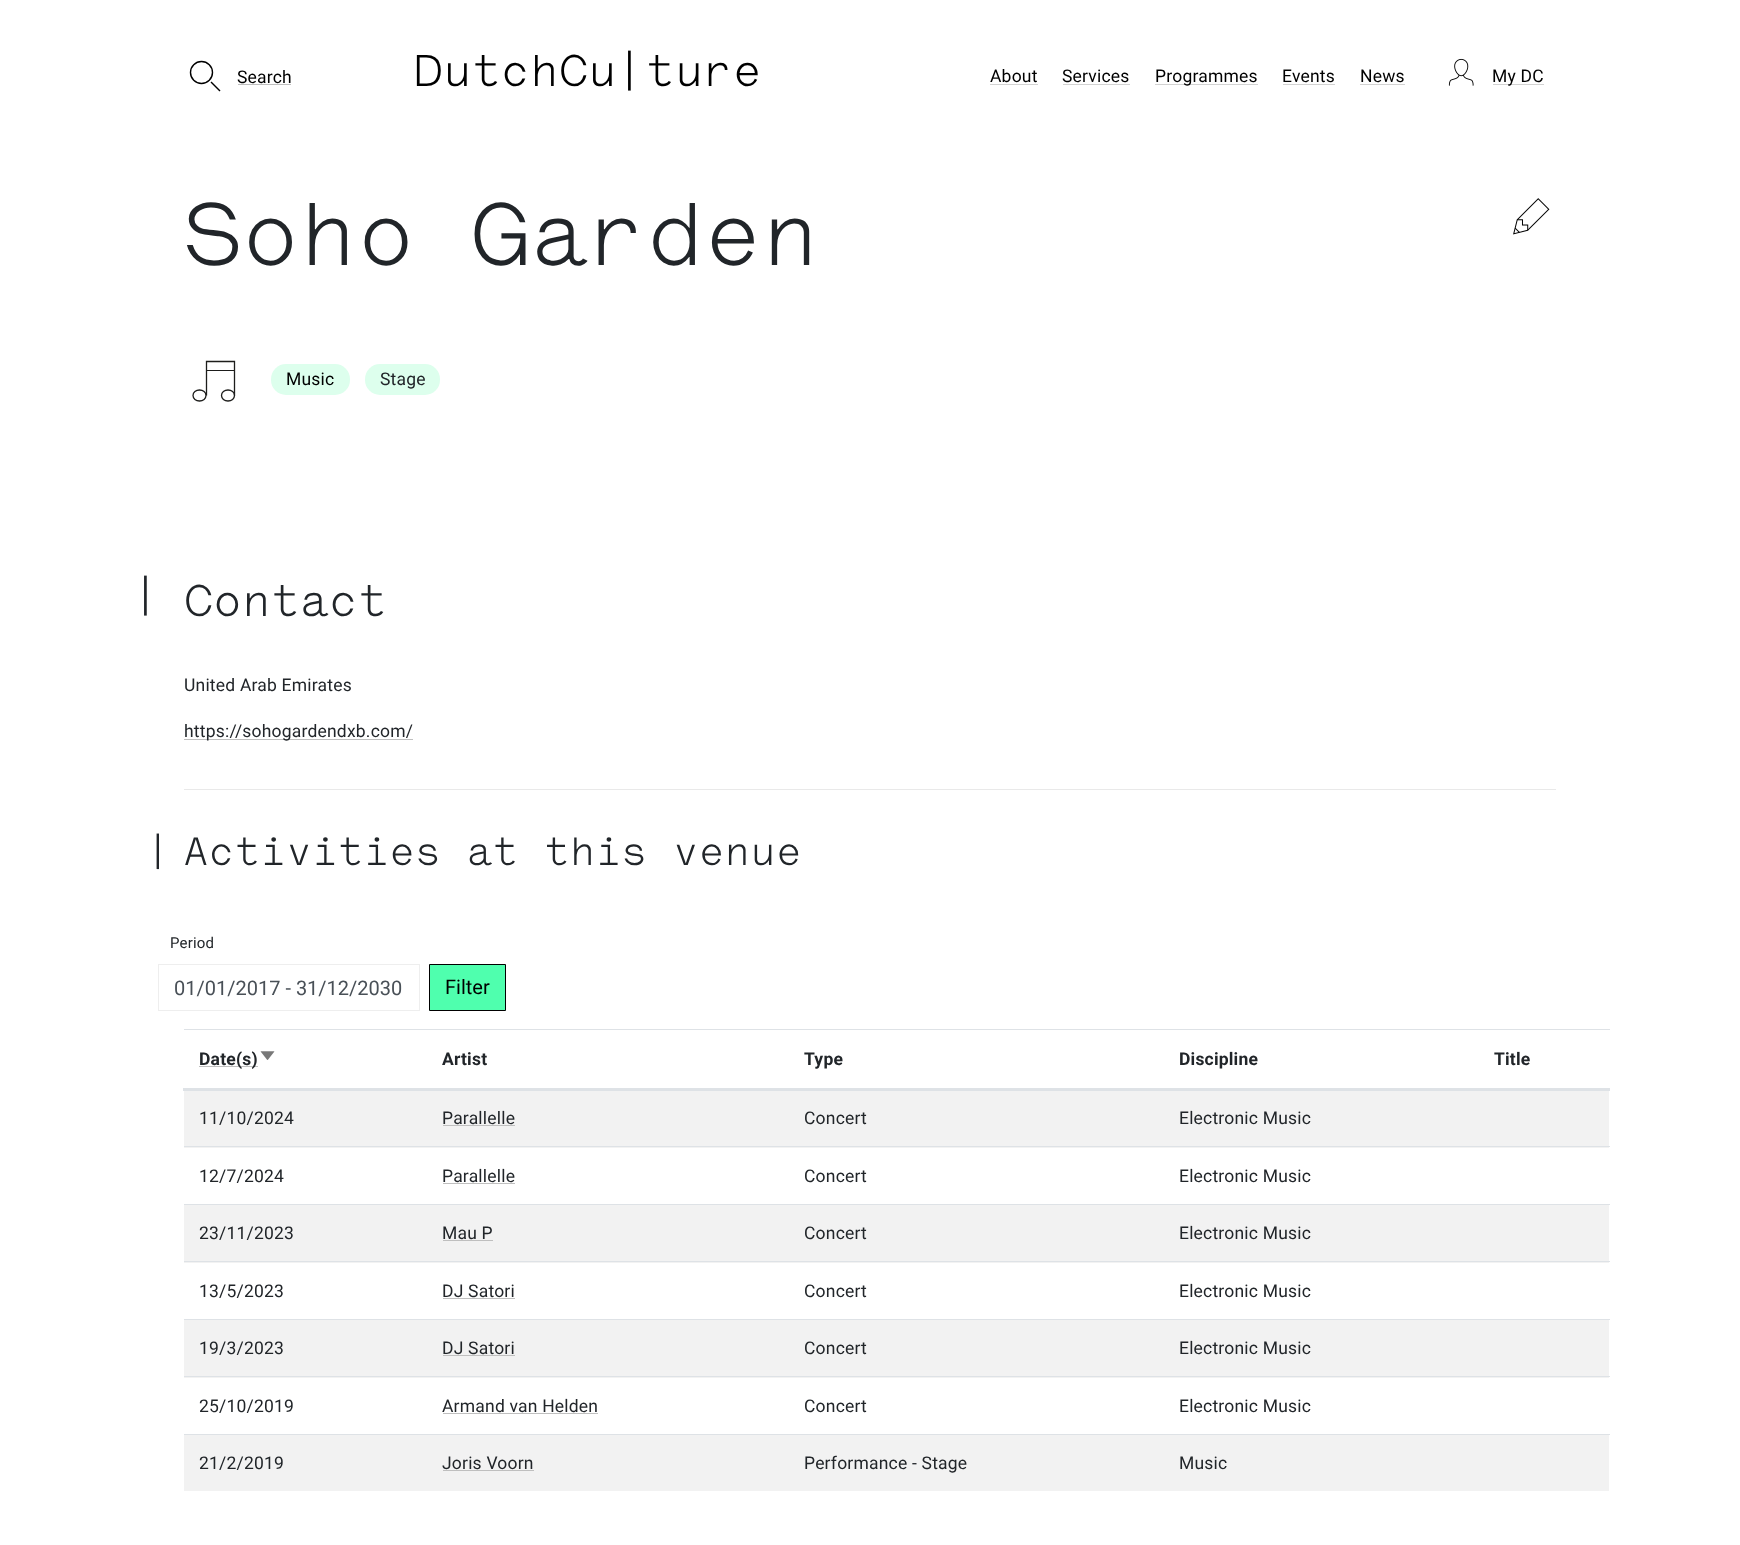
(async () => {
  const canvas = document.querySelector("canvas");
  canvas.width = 1740;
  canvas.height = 1545;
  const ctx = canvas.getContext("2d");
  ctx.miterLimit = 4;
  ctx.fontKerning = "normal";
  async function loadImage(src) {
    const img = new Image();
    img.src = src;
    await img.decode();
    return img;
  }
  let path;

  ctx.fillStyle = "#ffffff";
  ctx.fillRect(0, 0, 1740, 1545);
  ctx.beginPath();
  ctx.arc(201.5, 72.5, 11, 0, Math.PI * 2);
  ctx.strokeStyle = "#000000";
  ctx.lineWidth = 1.4;
  ctx.stroke();
  path = new Path2D("M211 82L220 91");
  ctx.stroke(path);
  for (const [x, y, w, h, color] of [
    [238, 84, 53, 1, "#bfbfbf"],
    [990, 84, 48, 1, "#d2d2d2"],
    [1063, 84, 67, 1, "#d2d2d2"],
    [1155, 84, 103, 1, "#d2d2d2"],
    [1283, 84, 52, 1, "#d2d2d2"],
    [1360, 84, 45, 1, "#d2d2d2"],
  ]) {
    ctx.fillStyle = color;
    ctx.fillRect(x, y, w, h);
  }
  ctx.drawImage(await loadImage("img/1.png"), 1448, 58, 26, 28);
  ctx.fillRect(1493, 84, 51, 1);
  ctx.drawImage(await loadImage("img/2.png"), 1513, 198, 37, 37);
  ctx.beginPath();
  ctx.ellipse(199.5, 395.5, 6.5, 5.5, 0, 0, Math.PI * 2);
  ctx.strokeStyle = "#1d1d1b";
  ctx.lineWidth = 1.3;
  ctx.stroke();
  ctx.beginPath();
  ctx.ellipse(228, 395.5, 6.5, 5.5, 0, 0, Math.PI * 2);
  ctx.stroke();
  path = new Path2D("M206.5 395.5V361.5H234.5V395.5");
  ctx.stroke(path);
  ctx.fillStyle = "#1d1d1b";
  ctx.fillRect(207, 370, 28, 1);
  ctx.fillStyle = "#ddffed";
  ctx.beginPath();
  ctx.roundRect(271, 364, 79, 31, 15);
  ctx.fill();
  ctx.beginPath();
  ctx.roundRect(365, 364, 75, 31, 15);
  ctx.fill();
  ctx.fillStyle = "#bfbfbf";
  ctx.fillRect(184, 739, 229, 1);
  ctx.fillStyle = "#e9e9e9";
  ctx.fillRect(184, 789, 1372, 1);
  ctx.strokeStyle = "#eeeeee";
  ctx.lineWidth = 1;
  ctx.strokeRect(158.5, 964.5, 261, 46);
  ctx.fillStyle = "#4fffae";
  ctx.beginPath();
  ctx.rect(429.5, 964.5, 76, 46);
  ctx.fill();
  ctx.strokeStyle = "#000000";
  ctx.stroke();
  ctx.fillStyle = "#bfbfbf";
  ctx.fillRect(199, 1066, 59, 1);
  ctx.drawImage(await loadImage("img/3.png"), 260, 1051, 15, 9);
  for (const [x, y, w, h, color] of [
    [184, 1029, 1426, 1, "#dee2e6"],
    [183, 1088, 1427, 3, "#dee2e6"],
    [184, 1091, 1425, 57, "#f2f2f2"],
    [443, 1125, 72, 1, "#bfbfbf"],
    [184, 1146, 1426, 1, "#dee2e6"],
    [443, 1183, 72, 1, "#bfbfbf"],
    [184, 1205, 1425, 58, "#f2f2f2"],
    [184, 1204, 1426, 1, "#dee2e6"],
    [443, 1240, 50, 1, "#bfbfbf"],
    [184, 1261, 1426, 1, "#dee2e6"],
    [443, 1298, 72, 1, "#bfbfbf"],
    [184, 1320, 1425, 58, "#f2f2f2"],
    [184, 1319, 1426, 1, "#dee2e6"],
    [443, 1355, 72, 1, "#bfbfbf"],
    [184, 1376, 1426, 1, "#dee2e6"],
    [443, 1413, 155, 1, "#bfbfbf"],
    [184, 1435, 1425, 56, "#f2f2f2"],
    [184, 1434, 1426, 1, "#dee2e6"],
    [443, 1470, 91, 1, "#bfbfbf"],
  ]) {
    ctx.fillStyle = color;
    ctx.fillRect(x, y, w, h);
  }
  ctx.letterSpacing = "0.2px";
  ctx.font = "17.5px Roboto";
  ctx.fillStyle = "#000000";
  ctx.fillText("Search", 237, 83);
  ctx.font = "45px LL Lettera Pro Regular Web";
  ctx.fillText("DutchCu ture", 414, 86);
  ctx.fillText("|", 615, 86);
  ctx.font = "17.5px Roboto";
  for (const [text, x, y] of [
    ["About", 990, 82],
    ["Services", 1062, 82],
    ["Programmes", 1155, 82],
    ["Events", 1282, 82],
    ["News", 1360, 82],
    ["My DC", 1492, 82],
  ]) {
    ctx.fillText(text, x, y);
  }
  ctx.font = "90px LL Lettera Pro Regular Web";
  ctx.fillStyle = "#212529";
  ctx.fillText("Soho Garden", 184, 265);
  ctx.font = "17.5px Roboto";
  ctx.fillStyle = "#000000";
  ctx.fillText("Music", 286, 385);
  ctx.fillStyle = "#212529";
  ctx.fillText("Stage", 380, 385);
  ctx.font = "45px LL Lettera Pro Regular Web";
  ctx.fillText("|", 131, 611);
  ctx.fillText("Contact", 184, 616);
  ctx.font = "17.5px Roboto";
  ctx.fillText("United Arab Emirates", 184, 691);
  ctx.fillText("https://sohogardendxb.com/", 184, 737);
  ctx.font = "40px LL Lettera Pro Regular Web";
  ctx.fillText("|", 145, 865);
  ctx.fillText("Activities at this venue", 183, 865);
  ctx.font = "15px Roboto";
  ctx.fillText("Period", 170, 948);
  ctx.letterSpacing = "0px";
  ctx.font = "20px Roboto";
  ctx.fillStyle = "#495057";
  ctx.fillText("01/01/2017 - 31/12/2030", 174, 995);
  ctx.fillStyle = "#000000";
  ctx.fillText("Filter", 445, 994);
  ctx.letterSpacing = "0.2px";
  ctx.font = "bold 17.5px Roboto";
  ctx.fillStyle = "#212529";
  for (const [text, x, y] of [
    ["Date(s)", 199, 1065],
    ["Artist", 442, 1065],
    ["Type", 804, 1065],
    ["Discipline", 1179, 1065],
    ["Title", 1494, 1065],
  ]) {
    ctx.fillText(text, x, y);
  }
  ctx.font = "17.5px Roboto";
  for (const [text, x, y] of [
    ["11/10/2024", 199, 1124],
    ["Parallelle", 442, 1124],
    ["Concert", 804, 1124],
    ["Electronic Music", 1179, 1124],
    ["12/7/2024", 199, 1182],
    ["Parallelle", 442, 1182],
    ["Concert", 804, 1182],
    ["Electronic Music", 1179, 1182],
    ["23/11/2023", 199, 1239],
    ["Mau P", 442, 1239],
    ["Concert", 804, 1239],
    ["Electronic Music", 1179, 1239],
    ["13/5/2023", 199, 1297],
    ["DJ Satori", 442, 1297],
    ["Concert", 804, 1297],
    ["Electronic Music", 1179, 1297],
    ["19/3/2023", 199, 1354],
    ["DJ Satori", 442, 1354],
    ["Concert", 804, 1354],
    ["Electronic Music", 1179, 1354],
    ["25/10/2019", 199, 1412],
    ["Armand van Helden", 442, 1412],
    ["Concert", 804, 1412],
    ["Electronic Music", 1179, 1412],
    ["21/2/2019", 199, 1469],
    ["Joris Voorn", 442, 1469],
    ["Performance - Stage", 804, 1469],
    ["Music", 1179, 1469],
  ]) {
    ctx.fillText(text, x, y);
  }
})();
